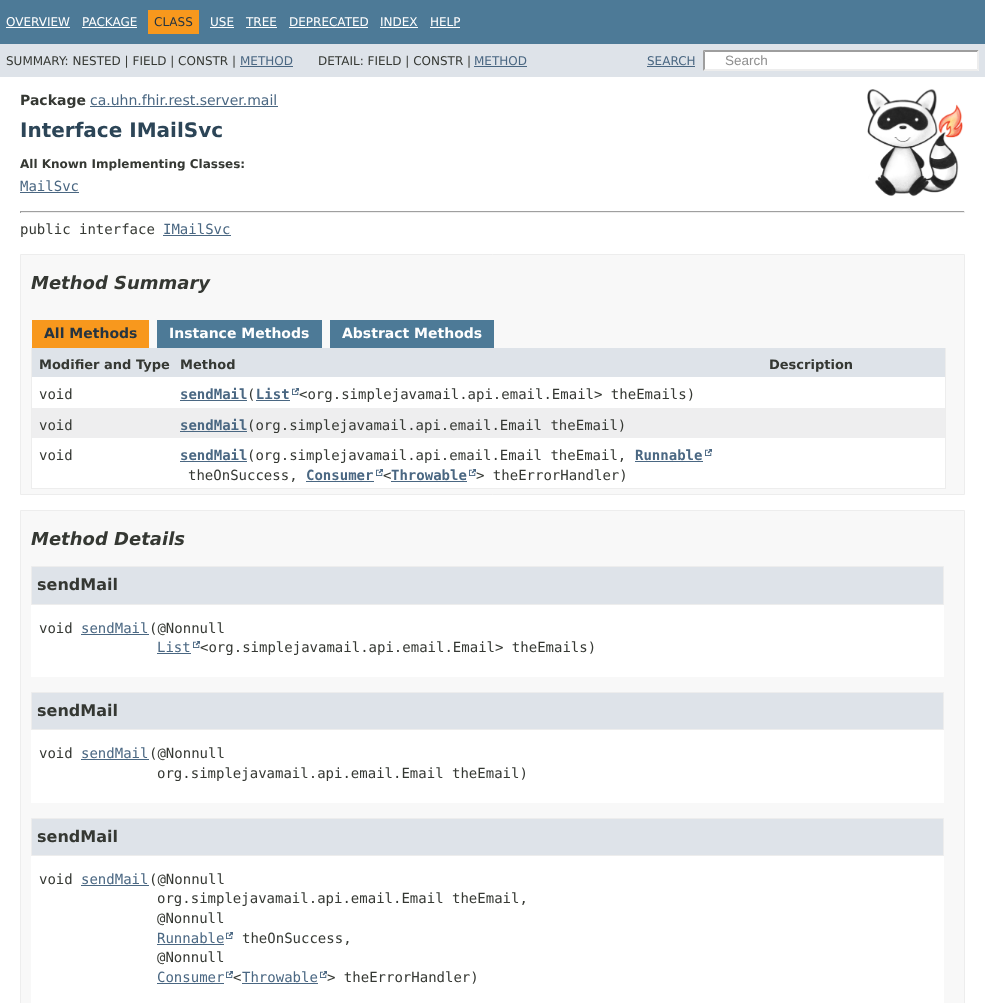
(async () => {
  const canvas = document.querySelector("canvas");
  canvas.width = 985;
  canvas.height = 1003;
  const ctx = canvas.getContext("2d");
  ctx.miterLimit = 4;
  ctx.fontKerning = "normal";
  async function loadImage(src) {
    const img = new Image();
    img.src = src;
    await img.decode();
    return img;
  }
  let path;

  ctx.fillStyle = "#ffffff";
  ctx.fillRect(0, 0, 985, 1003);
  for (const [x, y, w, h, color] of [
    [0, 0, 985, 44, "#4d7a97"],
    [6, 27, 64, 1, "#ffffff"],
    [82, 27, 55, 1, "#ffffff"],
    [148, 10, 51, 24, "#f8981d"],
    [210, 27, 24, 1, "#ffffff"],
    [246, 27, 31, 1, "#ffffff"],
    [289, 27, 79, 1, "#ffffff"],
    [380, 27, 38, 1, "#ffffff"],
    [430, 27, 30, 1, "#ffffff"],
    [0, 44, 985, 33, "#dee3e9"],
    [240, 66, 53, 1, "#4a6782"],
    [474, 66, 53, 1, "#4a6782"],
    [647, 66, 48, 1, "#4a6782"],
    [703, 50, 276, 21, "#ffffff"],
  ]) {
    ctx.fillStyle = color;
    ctx.fillRect(x, y, w, h);
  }
  ctx.fillStyle = "#9e9e9e";
  path = new Path2D("M703 50H979L977 52H705Z");
  ctx.fill(path);
  ctx.fillStyle = "#ededed";
  path = new Path2D("M979 50V71L977 69V52Z");
  ctx.fill(path);
  path = new Path2D("M979 71H703L705 69H977Z");
  ctx.fill(path);
  ctx.fillStyle = "#9e9e9e";
  path = new Path2D("M703 71V50L705 52V69Z");
  ctx.fill(path);
  ctx.fillStyle = "#4a6782";
  ctx.fillRect(90, 106, 188, 1);
  ctx.drawImage(await loadImage("img/1.png"), 867, 89, 96, 108);
  for (const [x, y, w, h, color] of [
    [20, 192, 59, 1, "#4a6782"],
    [20, 211, 945, 1, "#9f9f9f"],
    [964, 211, 1, 2, "#eeeeee"],
    [20, 212, 945, 1, "#eeeeee"],
    [20, 211, 1, 2, "#9f9f9f"],
    [163, 235, 68, 1, "#4a6782"],
  ]) {
    ctx.fillStyle = color;
    ctx.fillRect(x, y, w, h);
  }
  ctx.fillStyle = "#f8f8f8";
  ctx.beginPath();
  ctx.rect(20.5, 254.5, 944, 240);
  ctx.fill();
  ctx.strokeStyle = "#ededed";
  ctx.stroke();
  for (const [x, y, w, h, color] of [
    [32, 320, 117, 28, "#f8981d"],
    [157, 320, 165, 28, "#4d7a97"],
    [330, 320, 164, 28, "#4d7a97"],
    [945, 348, 1, 141, "#ededed"],
    [31, 488, 915, 1, "#ededed"],
    [31, 348, 1, 141, "#ededed"],
    [32, 348, 913, 29, "#dee3e9"],
    [32, 377, 913, 31, "#ffffff"],
    [180, 400, 67, 1, "#4a6782"],
  ]) {
    ctx.fillStyle = color;
    ctx.fillRect(x, y, w, h);
  }
  ctx.drawImage(await loadImage("img/2.png"), 292, 388, 7, 7);
  for (const [x, y, w, h, color] of [
    [256, 400, 34, 1, "#4a6782"],
    [32, 408, 913, 30, "#eeeeef"],
    [180, 431, 67, 1, "#4a6782"],
    [32, 438, 913, 50, "#ffffff"],
    [180, 461, 67, 1, "#4a6782"],
    [635, 461, 68, 1, "#4a6782"],
  ]) {
    ctx.fillStyle = color;
    ctx.fillRect(x, y, w, h);
  }
  ctx.drawImage(await loadImage("img/2.png"), 705, 449, 7, 7);
  ctx.fillRect(306, 481, 68, 1);
  ctx.drawImage(await loadImage("img/2.png"), 376, 469, 7, 7);
  ctx.fillRect(391, 481, 76, 1);
  ctx.drawImage(await loadImage("img/2.png"), 469, 469, 7, 7);
  ctx.fillStyle = "#f8f8f8";
  ctx.beginPath();
  ctx.rect(20.5, 510.5, 944, 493);
  ctx.fill();
  ctx.stroke();
  ctx.fillStyle = "#ffffff";
  ctx.fillRect(31, 605, 913, 72);
  ctx.fillStyle = "#dee3e9";
  ctx.beginPath();
  ctx.rect(31.5, 566.5, 912, 38);
  ctx.fill();
  ctx.stroke();
  ctx.fillStyle = "#4a6782";
  ctx.fillRect(81, 634, 68, 1);
  ctx.fillRect(157, 653, 34, 1);
  ctx.drawImage(await loadImage("img/2.png"), 193, 641, 7, 7);
  ctx.fillStyle = "#ffffff";
  ctx.fillRect(31, 730, 913, 73);
  ctx.fillStyle = "#dee3e9";
  ctx.beginPath();
  ctx.rect(31.5, 692.5, 912, 37);
  ctx.fill();
  ctx.stroke();
  ctx.fillStyle = "#4a6782";
  ctx.fillRect(81, 759, 68, 1);
  ctx.fillStyle = "#ffffff";
  ctx.fillRect(31, 856, 913, 147);
  ctx.fillStyle = "#dee3e9";
  ctx.beginPath();
  ctx.rect(31.5, 818.5, 912, 37);
  ctx.fill();
  ctx.stroke();
  ctx.fillStyle = "#4a6782";
  ctx.fillRect(81, 885, 68, 1);
  ctx.fillRect(157, 944, 67, 1);
  ctx.drawImage(await loadImage("img/2.png"), 226, 932, 7, 7);
  ctx.fillRect(157, 983, 67, 1);
  ctx.drawImage(await loadImage("img/2.png"), 226, 971, 7, 7);
  ctx.fillRect(242, 983, 76, 1);
  ctx.drawImage(await loadImage("img/2.png"), 320, 971, 7, 7);
  ctx.font = "12px DejaVu Sans";
  ctx.fillStyle = "#ffffff";
  ctx.fillText("OVERVIEW", 6, 26);
  ctx.fillText("PACKAGE", 82, 26);
  ctx.fillStyle = "#253441";
  ctx.fillText("CLASS", 154, 26);
  ctx.fillStyle = "#ffffff";
  for (const [text, x, y] of [
    ["USE", 210, 26],
    ["TREE", 246, 26],
    ["DEPRECATED", 289, 26],
    ["INDEX", 380, 26],
    ["HELP", 430, 26],
  ]) {
    ctx.fillText(text, x, y);
  }
  ctx.fillStyle = "#353833";
  ctx.fillText("SUMMARY: NESTED | FIELD | CONSTR |", 6, 65);
  ctx.fillStyle = "#4a6782";
  ctx.fillText("METHOD", 240, 65);
  ctx.fillStyle = "#353833";
  ctx.fillText("DETAIL: FIELD | CONSTR |", 318, 65);
  ctx.fillStyle = "#4a6782";
  ctx.fillText("METHOD", 474, 65);
  ctx.fillText("SEARCH", 647, 65);
  ctx.font = "13.5px Liberation Sans";
  ctx.fillStyle = "#909090";
  ctx.fillText("Search", 725, 65);
  ctx.font = "bold 14px DejaVu Sans";
  ctx.fillStyle = "#353833";
  ctx.fillText("Package", 20, 105);
  ctx.font = "14px DejaVu Sans";
  ctx.fillStyle = "#4a6782";
  ctx.fillText("ca.uhn.fhir.rest.server.mail", 90, 105);
  ctx.font = "bold 20px DejaVu Sans";
  ctx.fillStyle = "#2c4557";
  ctx.fillText("Interface IMailSvc", 20, 137);
  ctx.font = "bold 12px DejaVu Sans";
  ctx.fillStyle = "#353833";
  ctx.fillText("All Known Implementing Classes:", 20, 168);
  ctx.font = "14px DejaVu Sans Mono";
  ctx.fillStyle = "#4a6782";
  ctx.fillText("MailSvc", 20, 191);
  ctx.fillStyle = "#353833";
  ctx.fillText("public interface", 20, 234);
  ctx.fillStyle = "#4a6782";
  ctx.fillText("IMailSvc", 163, 234);
  ctx.font = "italic bold 18px DejaVu Sans";
  ctx.fillStyle = "#353833";
  ctx.fillText("Method Summary", 31, 289);
  ctx.font = "bold 14px DejaVu Sans";
  ctx.fillStyle = "#253441";
  ctx.fillText("All Methods", 44, 338);
  ctx.fillStyle = "#ffffff";
  ctx.fillText("Instance Methods", 169, 338);
  ctx.fillText("Abstract Methods", 342, 338);
  ctx.font = "bold 13px DejaVu Sans";
  ctx.fillStyle = "#353833";
  for (const [text, x, y] of [
    ["Modifier and Type", 39, 369],
    ["Method", 180, 369],
    ["Description", 769, 369],
  ]) {
    ctx.fillText(text, x, y);
  }
  ctx.font = "14px DejaVu Sans Mono";
  ctx.fillText("void", 39, 399);
  ctx.font = "bold 14px DejaVu Sans Mono";
  ctx.fillStyle = "#4a6782";
  ctx.fillText("sendMail List", 180, 399);
  ctx.font = "14px DejaVu Sans Mono";
  ctx.fillStyle = "#353833";
  for (const [text, x, y] of [
    ["(", 247, 399],
    ["<org.simplejavamail.api.email.Email> theEmails)", 299, 399],
    ["void", 39, 430],
  ]) {
    ctx.fillText(text, x, y);
  }
  ctx.font = "bold 14px DejaVu Sans Mono";
  ctx.fillStyle = "#4a6782";
  ctx.fillText("sendMail", 180, 430);
  ctx.font = "14px DejaVu Sans Mono";
  ctx.fillStyle = "#353833";
  ctx.fillText("(org.simplejavamail.api.email.Email theEmail)", 247, 430);
  ctx.fillText("void", 39, 460);
  ctx.font = "bold 14px DejaVu Sans Mono";
  ctx.fillStyle = "#4a6782";
  ctx.fillText("sendMail", 180, 460);
  ctx.font = "14px DejaVu Sans Mono";
  ctx.fillStyle = "#353833";
  ctx.fillText("(org.simplejavamail.api.email.Email theEmail,", 247, 460);
  ctx.font = "bold 14px DejaVu Sans Mono";
  ctx.fillStyle = "#4a6782";
  ctx.fillText("Runnable", 635, 460);
  ctx.font = "14px DejaVu Sans Mono";
  ctx.fillStyle = "#353833";
  ctx.fillText("theOnSuccess,", 188, 480);
  ctx.font = "bold 14px DejaVu Sans Mono";
  ctx.fillStyle = "#4a6782";
  ctx.fillText("Consumer", 306, 480);
  ctx.font = "14px DejaVu Sans Mono";
  ctx.fillStyle = "#353833";
  ctx.fillText("<", 383, 480);
  ctx.font = "bold 14px DejaVu Sans Mono";
  ctx.fillStyle = "#4a6782";
  ctx.fillText("Throwable", 391, 480);
  ctx.font = "14px DejaVu Sans Mono";
  ctx.fillStyle = "#353833";
  ctx.fillText("> theErrorHandler)", 476, 480);
  ctx.font = "italic bold 18px DejaVu Sans";
  ctx.fillText("Method Details", 31, 545);
  ctx.font = "bold 16px DejaVu Sans";
  ctx.fillText("sendMail", 37, 590);
  ctx.font = "14px DejaVu Sans Mono";
  ctx.fillText("void", 39, 633);
  ctx.fillStyle = "#4a6782";
  ctx.fillText("sendMail", 81, 633);
  ctx.fillStyle = "#353833";
  ctx.fillText("(@Nonnull", 149, 633);
  ctx.fillStyle = "#4a6782";
  ctx.fillText("List", 157, 652);
  ctx.fillStyle = "#353833";
  ctx.fillText("<org.simplejavamail.api.email.Email> theEmails)", 200, 652);
  ctx.font = "bold 16px DejaVu Sans";
  ctx.fillText("sendMail", 37, 716);
  ctx.font = "14px DejaVu Sans Mono";
  ctx.fillText("void", 39, 758);
  ctx.fillStyle = "#4a6782";
  ctx.fillText("sendMail", 81, 758);
  ctx.fillStyle = "#353833";
  ctx.fillText("(@Nonnull", 149, 758);
  ctx.fillText("org.simplejavamail.api.email.Email theEmail)", 157, 778);
  ctx.font = "bold 16px DejaVu Sans";
  ctx.fillText("sendMail", 37, 842);
  ctx.font = "14px DejaVu Sans Mono";
  ctx.fillText("void", 39, 884);
  ctx.fillStyle = "#4a6782";
  ctx.fillText("sendMail", 81, 884);
  ctx.fillStyle = "#353833";
  for (const [text, x, y] of [
    ["(@Nonnull", 149, 884],
    ["org.simplejavamail.api.email.Email theEmail,", 157, 903],
    ["@Nonnull", 157, 923],
  ]) {
    ctx.fillText(text, x, y);
  }
  ctx.fillStyle = "#4a6782";
  ctx.fillText("Runnable", 157, 943);
  ctx.fillStyle = "#353833";
  ctx.fillText("theOnSuccess,", 242, 943);
  ctx.fillText("@Nonnull", 157, 962);
  ctx.fillStyle = "#4a6782";
  ctx.fillText("Consumer", 157, 982);
  ctx.fillStyle = "#353833";
  ctx.fillText("<", 233, 982);
  ctx.fillStyle = "#4a6782";
  ctx.fillText("Throwable", 242, 982);
  ctx.fillStyle = "#353833";
  ctx.fillText("> theErrorHandler)", 327, 982);
})();
